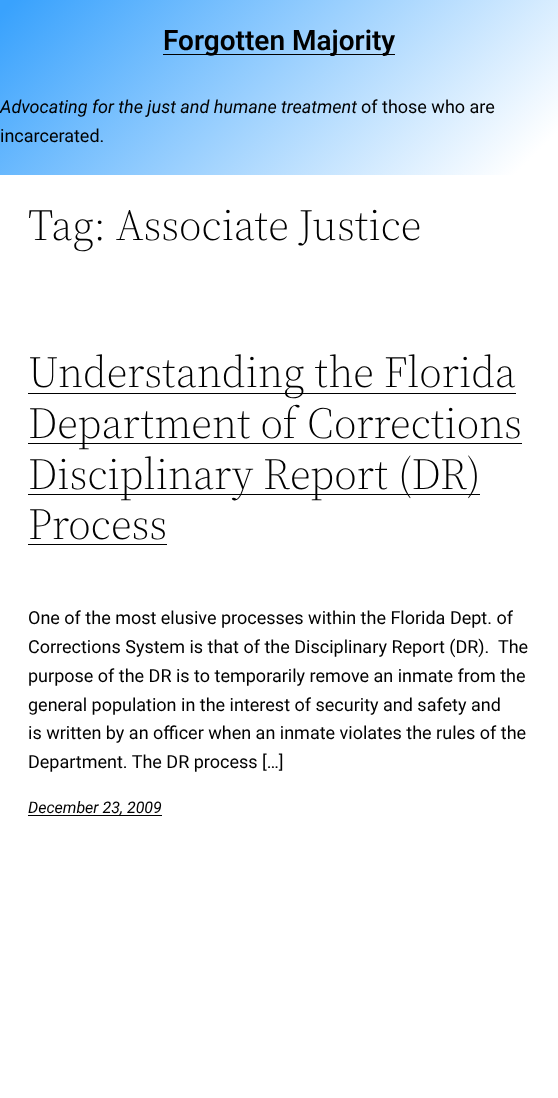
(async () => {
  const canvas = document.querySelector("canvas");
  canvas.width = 558;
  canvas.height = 1098;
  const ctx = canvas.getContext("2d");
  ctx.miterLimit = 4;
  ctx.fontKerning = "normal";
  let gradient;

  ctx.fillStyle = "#ffffff";
  ctx.fillRect(0, 0, 558, 1098);
  gradient = ctx.createLinearGradient(96, -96, 462, 271);
  gradient.addColorStop(0.02, "#39a2fd");
  gradient.addColorStop(0.94, "#ffffff");
  ctx.fillStyle = gradient;
  ctx.fillRect(0, 0, 558, 175);
  for (const [x, y, w, h, color] of [
    [163, 54, 232, 1, "#000000"],
    [28, 393, 488, 1, "#000000"],
    [28, 443, 494, 1, "#000000"],
    [28, 494, 452, 1, "#000000"],
    [28, 544, 139, 1, "#000000"],
    [28, 815, 134, 1, "#000000"],
  ]) {
    ctx.fillStyle = color;
    ctx.fillRect(x, y, w, h);
  }
  ctx.font = "600 28px Roboto";
  ctx.fillText("Forgotten Majority", 163, 50);
  ctx.font = "italic 18px Roboto";
  ctx.fillText("Advocating for the just and humane treatment", 0, 113);
  ctx.font = "18px Roboto";
  ctx.fillText("of those who are", 361, 113);
  ctx.fillText("incarcerated.", 0, 142);
  ctx.font = "300 44px 'Source Serif 4'";
  for (const [text, x, y] of [
    ["Tag: Associate Justice", 28, 240],
    ["Understanding the Florida", 28, 387],
    ["Department of Corrections", 28, 438],
    ["Disciplinary Report (DR)", 28, 489],
    ["Process", 28, 539],
  ]) {
    ctx.fillText(text, x, y);
  }
  ctx.font = "18px Roboto";
  for (const [text, x, y] of [
    ["One of the most elusive processes within the Florida Dept. of", 28, 624],
    ["Corrections System is that of the Disciplinary Report (DR).  The", 28, 653],
    ["purpose of the DR is to temporarily remove an inmate from the", 28, 682],
    ["general population in the interest of security and safety and", 28, 711],
    ["is written by an officer when an inmate violates the rules of the", 28, 739],
    ["Department. The DR process […]", 28, 768],
  ]) {
    ctx.fillText(text, x, y);
  }
  ctx.font = "italic 16px Roboto";
  ctx.fillText("December 23, 2009", 28, 813);
})();
